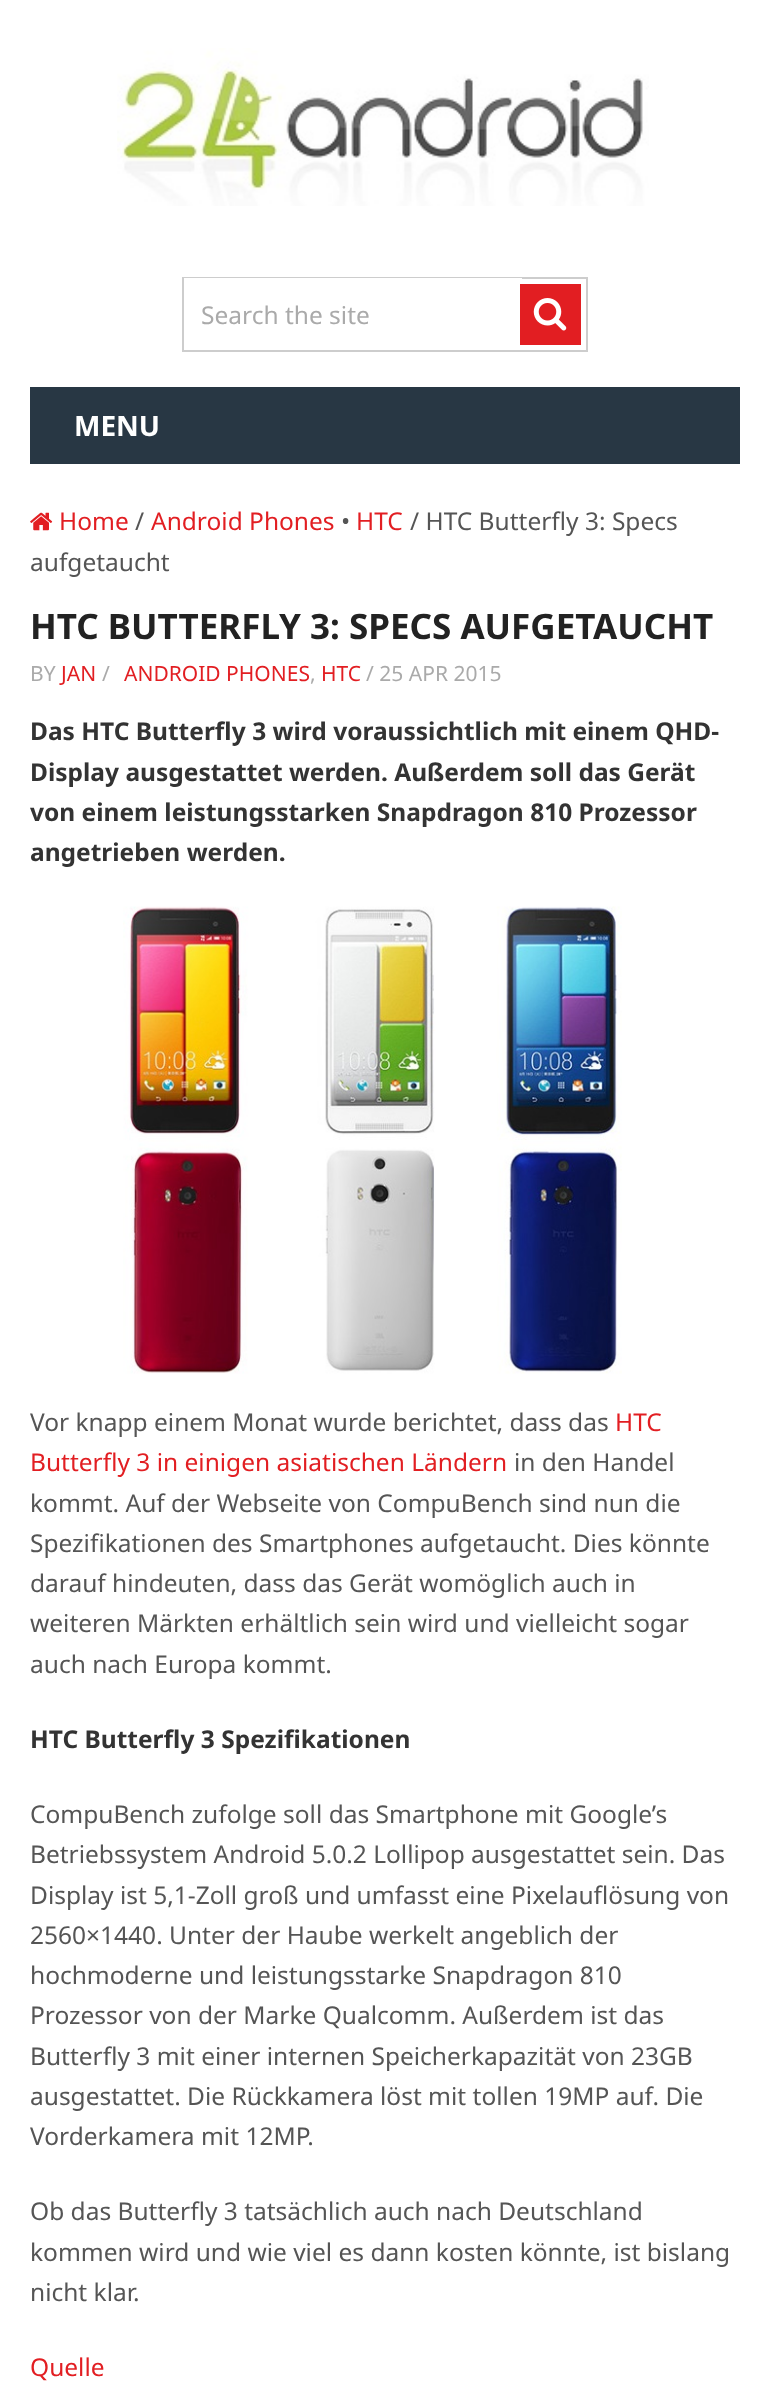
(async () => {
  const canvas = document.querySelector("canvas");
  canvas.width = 769;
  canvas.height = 2391;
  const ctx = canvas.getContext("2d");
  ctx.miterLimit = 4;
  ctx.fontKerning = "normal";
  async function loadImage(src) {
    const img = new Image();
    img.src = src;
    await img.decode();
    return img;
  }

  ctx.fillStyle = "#ffffff";
  ctx.fillRect(0, 0, 769, 2391);
  ctx.drawImage(await loadImage("img/1.png"), 117, 48, 532, 158);
  ctx.strokeStyle = "#cdcdcd";
  ctx.lineWidth = 2;
  ctx.strokeRect(183, 278, 404, 73);
  ctx.fillRect(184, 278, 338, 1);
  ctx.fillStyle = "#e21e22";
  ctx.fillRect(520, 284, 61, 61);
  ctx.drawImage(await loadImage("img/2.png"), 533, 298, 34, 33);
  ctx.fillStyle = "#283744";
  ctx.fillRect(30, 387, 710, 77);
  ctx.drawImage(await loadImage("img/3.png"), 30, 512, 23, 19);
  ctx.drawImage(await loadImage("img/4.png"), 123, 906, 499, 468);
  ctx.font = "24.5px Noto Sans";
  ctx.fillStyle = "#aaaaaa";
  ctx.fillText("Search the site", 201, 324);
  ctx.font = "bold 28px Noto Sans";
  ctx.fillStyle = "#ffffff";
  ctx.fillText("MENU", 74, 436);
  ctx.font = "24.5px Noto Sans";
  ctx.fillStyle = "#e21e22";
  ctx.fillText("Home", 59, 530);
  ctx.fillStyle = "#555555";
  ctx.fillText("/", 135, 530);
  ctx.fillStyle = "#e21e22";
  ctx.fillText("Android Phones", 151, 530);
  ctx.fillStyle = "#555555";
  ctx.fillText("•", 341, 530);
  ctx.fillStyle = "#e21e22";
  ctx.fillText("HTC", 356, 530);
  ctx.fillStyle = "#555555";
  ctx.fillText("/ HTC Butterfly 3: Specs", 410, 530);
  ctx.fillText("aufgetaucht", 30, 571);
  ctx.font = "bold 35px Noto Sans";
  ctx.fillStyle = "#222222";
  ctx.fillText("HTC BUTTERFLY 3: SPECS AUFGETAUCHT", 30, 639);
  ctx.font = "21px Noto Sans";
  ctx.fillStyle = "#aaaaaa";
  ctx.fillText("BY", 30, 681);
  ctx.fillStyle = "#e21e22";
  ctx.fillText("JAN", 61, 681);
  ctx.fillStyle = "#aaaaaa";
  ctx.fillText("/", 102, 681);
  ctx.fillStyle = "#e21e22";
  ctx.fillText("ANDROID PHONES", 124, 681);
  ctx.fillStyle = "#aaaaaa";
  ctx.fillText(",", 310, 681);
  ctx.fillStyle = "#e21e22";
  ctx.fillText("HTC", 321, 681);
  ctx.fillStyle = "#aaaaaa";
  ctx.fillText("/ 25 APR 2015", 366, 681);
  ctx.font = "bold 24.5px Noto Sans";
  ctx.fillStyle = "#333333";
  for (const [text, x, y] of [
    ["Das HTC Butterfly 3 wird voraussichtlich mit einem QHD-", 30, 740],
    ["Display ausgestattet werden. Außerdem soll das Gerät", 30, 781],
    ["von einem leistungsstarken Snapdragon 810 Prozessor", 30, 821],
    ["angetrieben werden.", 30, 861],
  ]) {
    ctx.fillText(text, x, y);
  }
  ctx.font = "24.5px Noto Sans";
  ctx.fillStyle = "#555555";
  ctx.fillText("Vor knapp einem Monat wurde berichtet, dass das", 30, 1431);
  ctx.fillStyle = "#e21e22";
  ctx.fillText("HTC", 615, 1431);
  ctx.fillText("Butterfly 3 in einigen asiatischen Ländern", 30, 1471);
  ctx.fillStyle = "#555555";
  for (const [text, x, y] of [
    ["in den Handel", 514, 1471],
    ["kommt. Auf der Webseite von CompuBench sind nun die", 30, 1512],
    ["Spezifikationen des Smartphones aufgetaucht. Dies könnte", 30, 1552],
    ["darauf hindeuten, dass das Gerät womöglich auch in", 30, 1592],
    ["weiteren Märkten erhältlich sein wird und vielleicht sogar", 30, 1632],
    ["auch nach Europa kommt.", 30, 1673],
  ]) {
    ctx.fillText(text, x, y);
  }
  ctx.font = "bold 24.5px Noto Sans";
  ctx.fillStyle = "#333333";
  ctx.fillText("HTC Butterfly 3 Spezifikationen", 30, 1748);
  ctx.font = "24.5px Noto Sans";
  ctx.fillStyle = "#555555";
  for (const [text, x, y] of [
    ["CompuBench zufolge soll das Smartphone mit Google’s", 30, 1823],
    ["Betriebssystem Android 5.0.2 Lollipop ausgestattet sein. Das", 30, 1863],
    ["Display ist 5,1-Zoll groß und umfasst eine Pixelauflösung von", 30, 1904],
    ["2560×1440. Unter der Haube werkelt angeblich der", 30, 1944],
    ["hochmoderne und leistungsstarke Snapdragon 810", 30, 1984],
    ["Prozessor von der Marke Qualcomm. Außerdem ist das", 30, 2024],
    ["Butterfly 3 mit einer internen Speicherkapazität von 23GB", 30, 2065],
    ["ausgestattet. Die Rückkamera löst mit tollen 19MP auf. Die", 30, 2105],
    ["Vorderkamera mit 12MP.", 30, 2145],
    ["Ob das Butterfly 3 tatsächlich auch nach Deutschland", 30, 2220],
    ["kommen wird und wie viel es dann kosten könnte, ist bislang", 30, 2261],
    ["nicht klar.", 30, 2301],
  ]) {
    ctx.fillText(text, x, y);
  }
  ctx.fillStyle = "#e21e22";
  ctx.fillText("Quelle", 30, 2376);
})();
